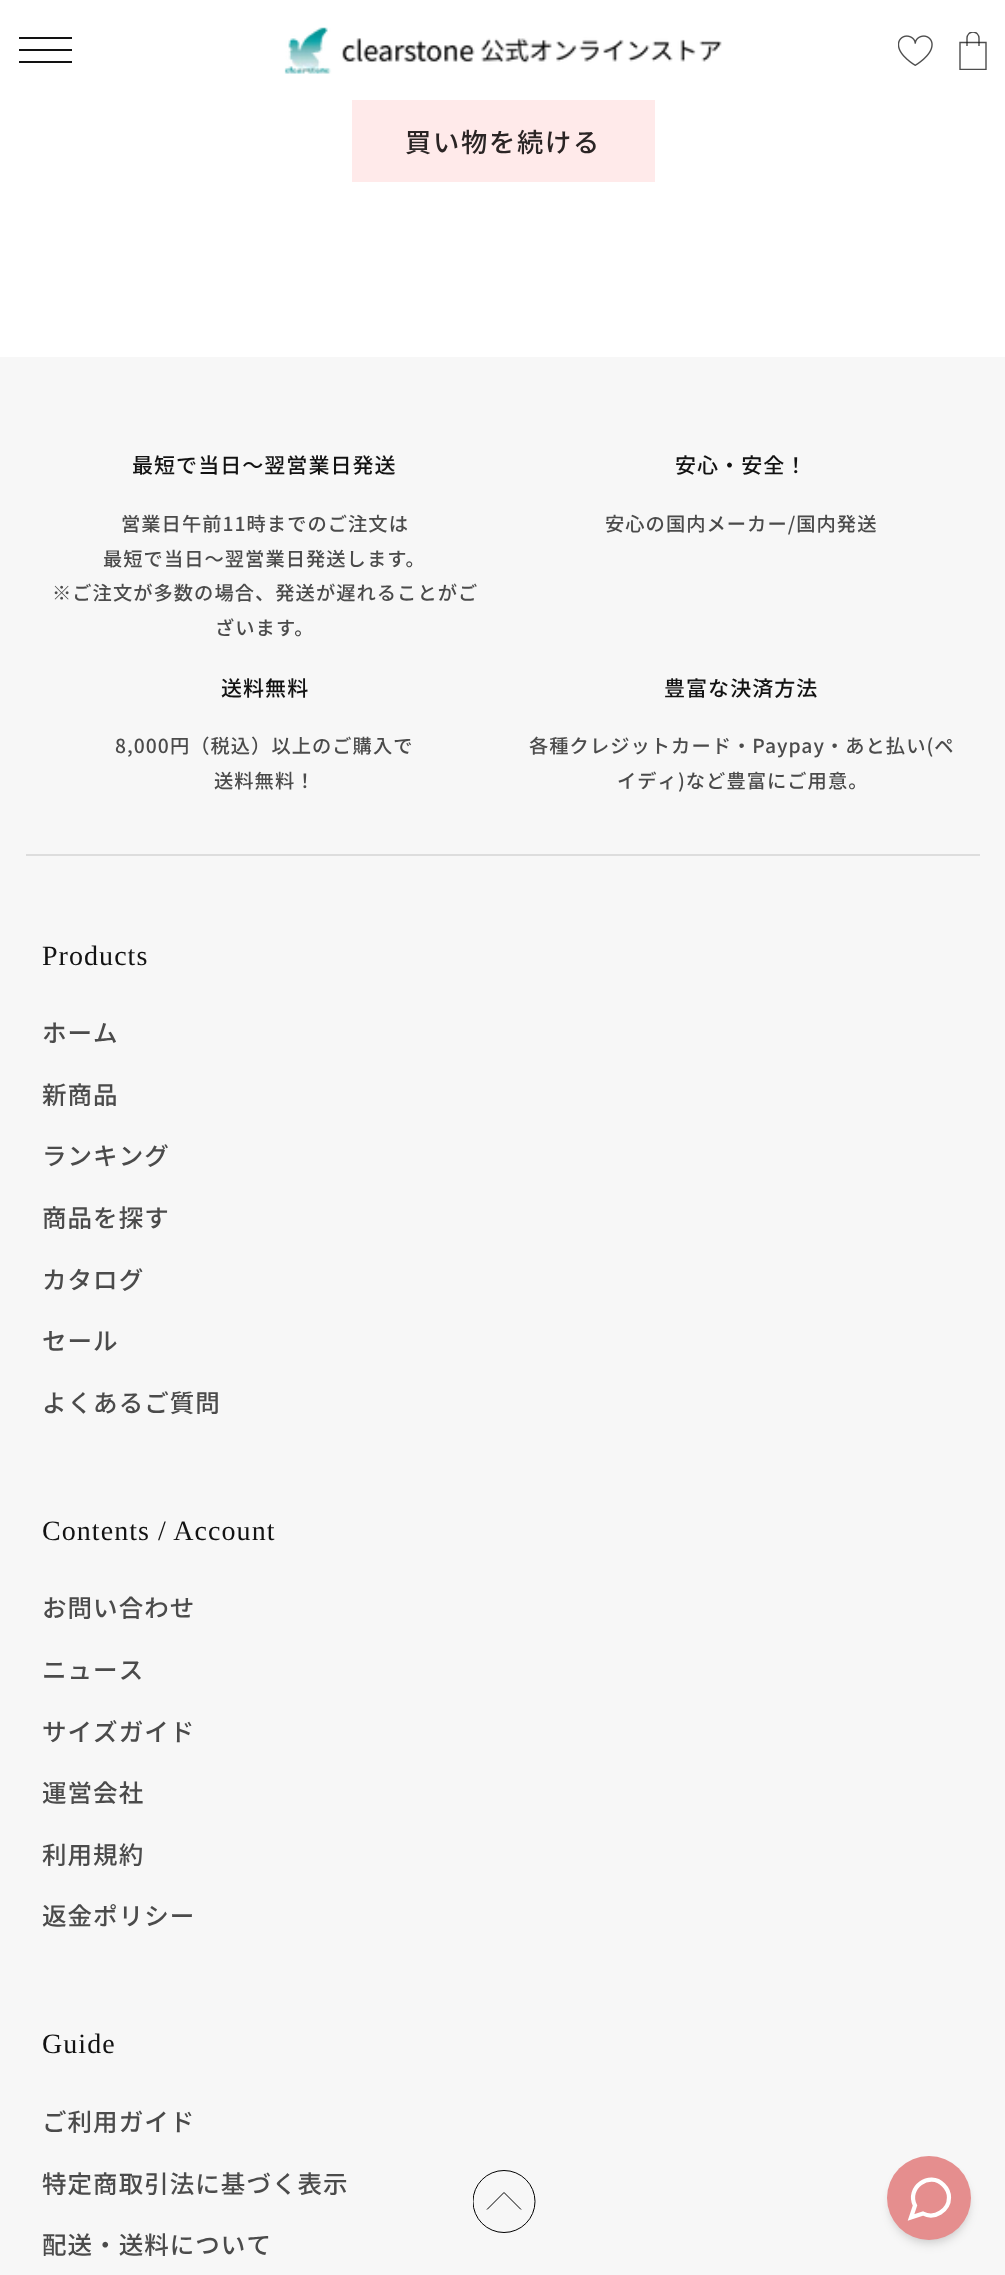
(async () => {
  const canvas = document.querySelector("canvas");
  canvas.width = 1005;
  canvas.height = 2275;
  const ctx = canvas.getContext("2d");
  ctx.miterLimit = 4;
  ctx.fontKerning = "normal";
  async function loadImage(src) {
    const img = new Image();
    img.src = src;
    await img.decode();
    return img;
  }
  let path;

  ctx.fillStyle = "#ffffff";
  ctx.fillRect(0, 0, 1005, 2275);
  for (const [x, y, w, h, color] of [
    [19, 37, 53, 2, "#121212"],
    [19, 49, 53, 2, "#121212"],
    [19, 61, 53, 2, "#121212"],
  ]) {
    ctx.fillStyle = color;
    ctx.fillRect(x, y, w, h);
  }
  ctx.drawImage(await loadImage("img/1.png"), 284, 27, 438, 47);
  ctx.drawImage(await loadImage("img/2.png"), 898, 35, 35, 31);
  ctx.save();
  ctx.beginPath();
  ctx.rect(954, 32, 38, 38);
  ctx.clip();
  path = new Path2D("M980 42.5H986V69.5H960V42.5Z");
  ctx.strokeStyle = "#4d4d4d";
  ctx.lineWidth = 1.4;
  ctx.stroke(path);
  path = new Path2D("M967 46V38C967 35 969.5 32 973 32C976.5 32 979 35 979 38V46");
  ctx.strokeStyle = "rgba(18, 18, 18, 0.75)";
  ctx.stroke(path);
  ctx.restore();
  for (const [x, y, w, h, color] of [
    [352, 100, 303, 82, "#ffeaea"],
    [0, 357, 1005, 1918, "#f7f7f7"],
    [26, 854, 954, 2, "#dddddd"],
  ]) {
    ctx.fillStyle = color;
    ctx.fillRect(x, y, w, h);
  }
  path = new Path2D("M487 2209.5L504 2192.5L521 2209.5");
  ctx.strokeStyle = "#000000";
  ctx.lineJoin = "bevel";
  ctx.stroke(path);
  ctx.save();
  ctx.beginPath();
  ctx.rect(473, 2170, 63, 63);
  ctx.clip();
  ctx.beginPath();
  ctx.arc(504, 2201.5, 31, 0, Math.PI * 2);
  ctx.stroke();
  ctx.restore();
  ctx.fillStyle = "rgba(0, 0, 0, 0.1)";
  ctx.filter = "blur(3.5px)";
  ctx.beginPath();
  ctx.roundRect(891, 2163, 77, 77, 38.5);
  ctx.fill();
  ctx.filter = "none";
  ctx.filter = "blur(5px)";
  ctx.beginPath();
  ctx.roundRect(889, 2165, 81, 80, 40);
  ctx.fill();
  ctx.filter = "none";
  ctx.fillStyle = "#e58e8e";
  ctx.beginPath();
  ctx.arc(929, 2198, 42, 0, Math.PI * 2);
  ctx.fill();
  path = new Path2D("M949 2197.5C949 2210.5 934.5 2219.5 923 2213.5L911 2217.5L915 2205.5C906 2188 929.5 2170.5 943.5 2185C947 2188.5 949 2193 949 2197.5Z");
  ctx.strokeStyle = "#ffffff";
  ctx.lineWidth = 4.2;
  ctx.lineJoin = "miter";
  ctx.stroke(path);
  ctx.letterSpacing = "1.75px";
  ctx.font = "500 26.25px Noto Sans JP";
  ctx.fillStyle = "#2b2525";
  ctx.fillText("買い物を続ける", 405, 152);
  ctx.letterSpacing = "1.05px";
  ctx.font = "500 21px Noto Sans JP";
  ctx.fillStyle = "#121212";
  ctx.fillText("最短で当日～翌営業日発送", 132, 473);
  ctx.font = "500 19.25px Noto Sans JP";
  ctx.fillStyle = "#4b4b4b";
  for (const [text, x, y] of [
    ["営業日午前11時までのご注文は", 121, 531],
    ["最短で当日～翌営業日発送します。", 103, 566],
    ["※ご注文が多数の場合、発送が遅れることがご", 52, 600],
    ["ざいます。", 215, 635],
  ]) {
    ctx.fillText(text, x, y);
  }
  ctx.font = "500 21px Noto Sans JP";
  ctx.fillStyle = "#121212";
  ctx.fillText("安心・安全！", 675, 473);
  ctx.font = "500 19.25px Noto Sans JP";
  ctx.fillStyle = "#4b4b4b";
  ctx.fillText("安心の国内メーカー/国内発送", 605, 531);
  ctx.font = "500 21px Noto Sans JP";
  ctx.fillStyle = "#121212";
  ctx.fillText("送料無料", 221, 696);
  ctx.font = "500 19.25px Noto Sans JP";
  ctx.fillStyle = "#4b4b4b";
  ctx.fillText("8,000円（税込）以上のご購入で", 115, 753);
  ctx.fillText("送料無料！", 214, 788);
  ctx.font = "500 21px Noto Sans JP";
  ctx.fillStyle = "#121212";
  ctx.fillText("豊富な決済方法", 664, 696);
  ctx.font = "500 19.25px Noto Sans JP";
  ctx.fillStyle = "#4b4b4b";
  ctx.fillText("各種クレジットカード・Paypay・あと払い(ペ", 529, 753);
  ctx.fillText("イディ)など豊富にご用意。", 617, 788);
  ctx.font = "28px Liberation Serif";
  ctx.fillStyle = "#121212";
  ctx.fillText("Products", 42, 965);
  ctx.font = "500 24.5px Noto Sans JP";
  ctx.fillStyle = "#4b4b4b";
  for (const [text, x, y] of [
    ["ホーム", 42, 1042],
    ["新商品", 42, 1104],
    ["ランキング", 42, 1165],
    ["商品を探す", 42, 1227],
    ["カタログ", 42, 1289],
    ["セール", 42, 1350],
    ["よくあるご質問", 42, 1412],
  ]) {
    ctx.fillText(text, x, y);
  }
  ctx.font = "28px Liberation Serif";
  ctx.fillStyle = "#121212";
  ctx.fillText("Contents / Account", 42, 1540);
  ctx.font = "500 24.5px Noto Sans JP";
  ctx.fillStyle = "#4b4b4b";
  for (const [text, x, y] of [
    ["お問い合わせ", 42, 1617],
    ["ニュース", 42, 1679],
    ["サイズガイド", 42, 1741],
    ["運営会社", 42, 1802],
    ["利用規約", 42, 1864],
    ["返金ポリシー", 42, 1925],
  ]) {
    ctx.fillText(text, x, y);
  }
  ctx.font = "28px Liberation Serif";
  ctx.fillStyle = "#121212";
  ctx.fillText("Guide", 42, 2053);
  ctx.font = "500 24.5px Noto Sans JP";
  ctx.fillStyle = "#4b4b4b";
  for (const [text, x, y] of [
    ["ご利用ガイド", 42, 2131],
    ["特定商取引法に基づく表示", 42, 2193],
    ["配送・送料について", 42, 2254],
  ]) {
    ctx.fillText(text, x, y);
  }
})();
